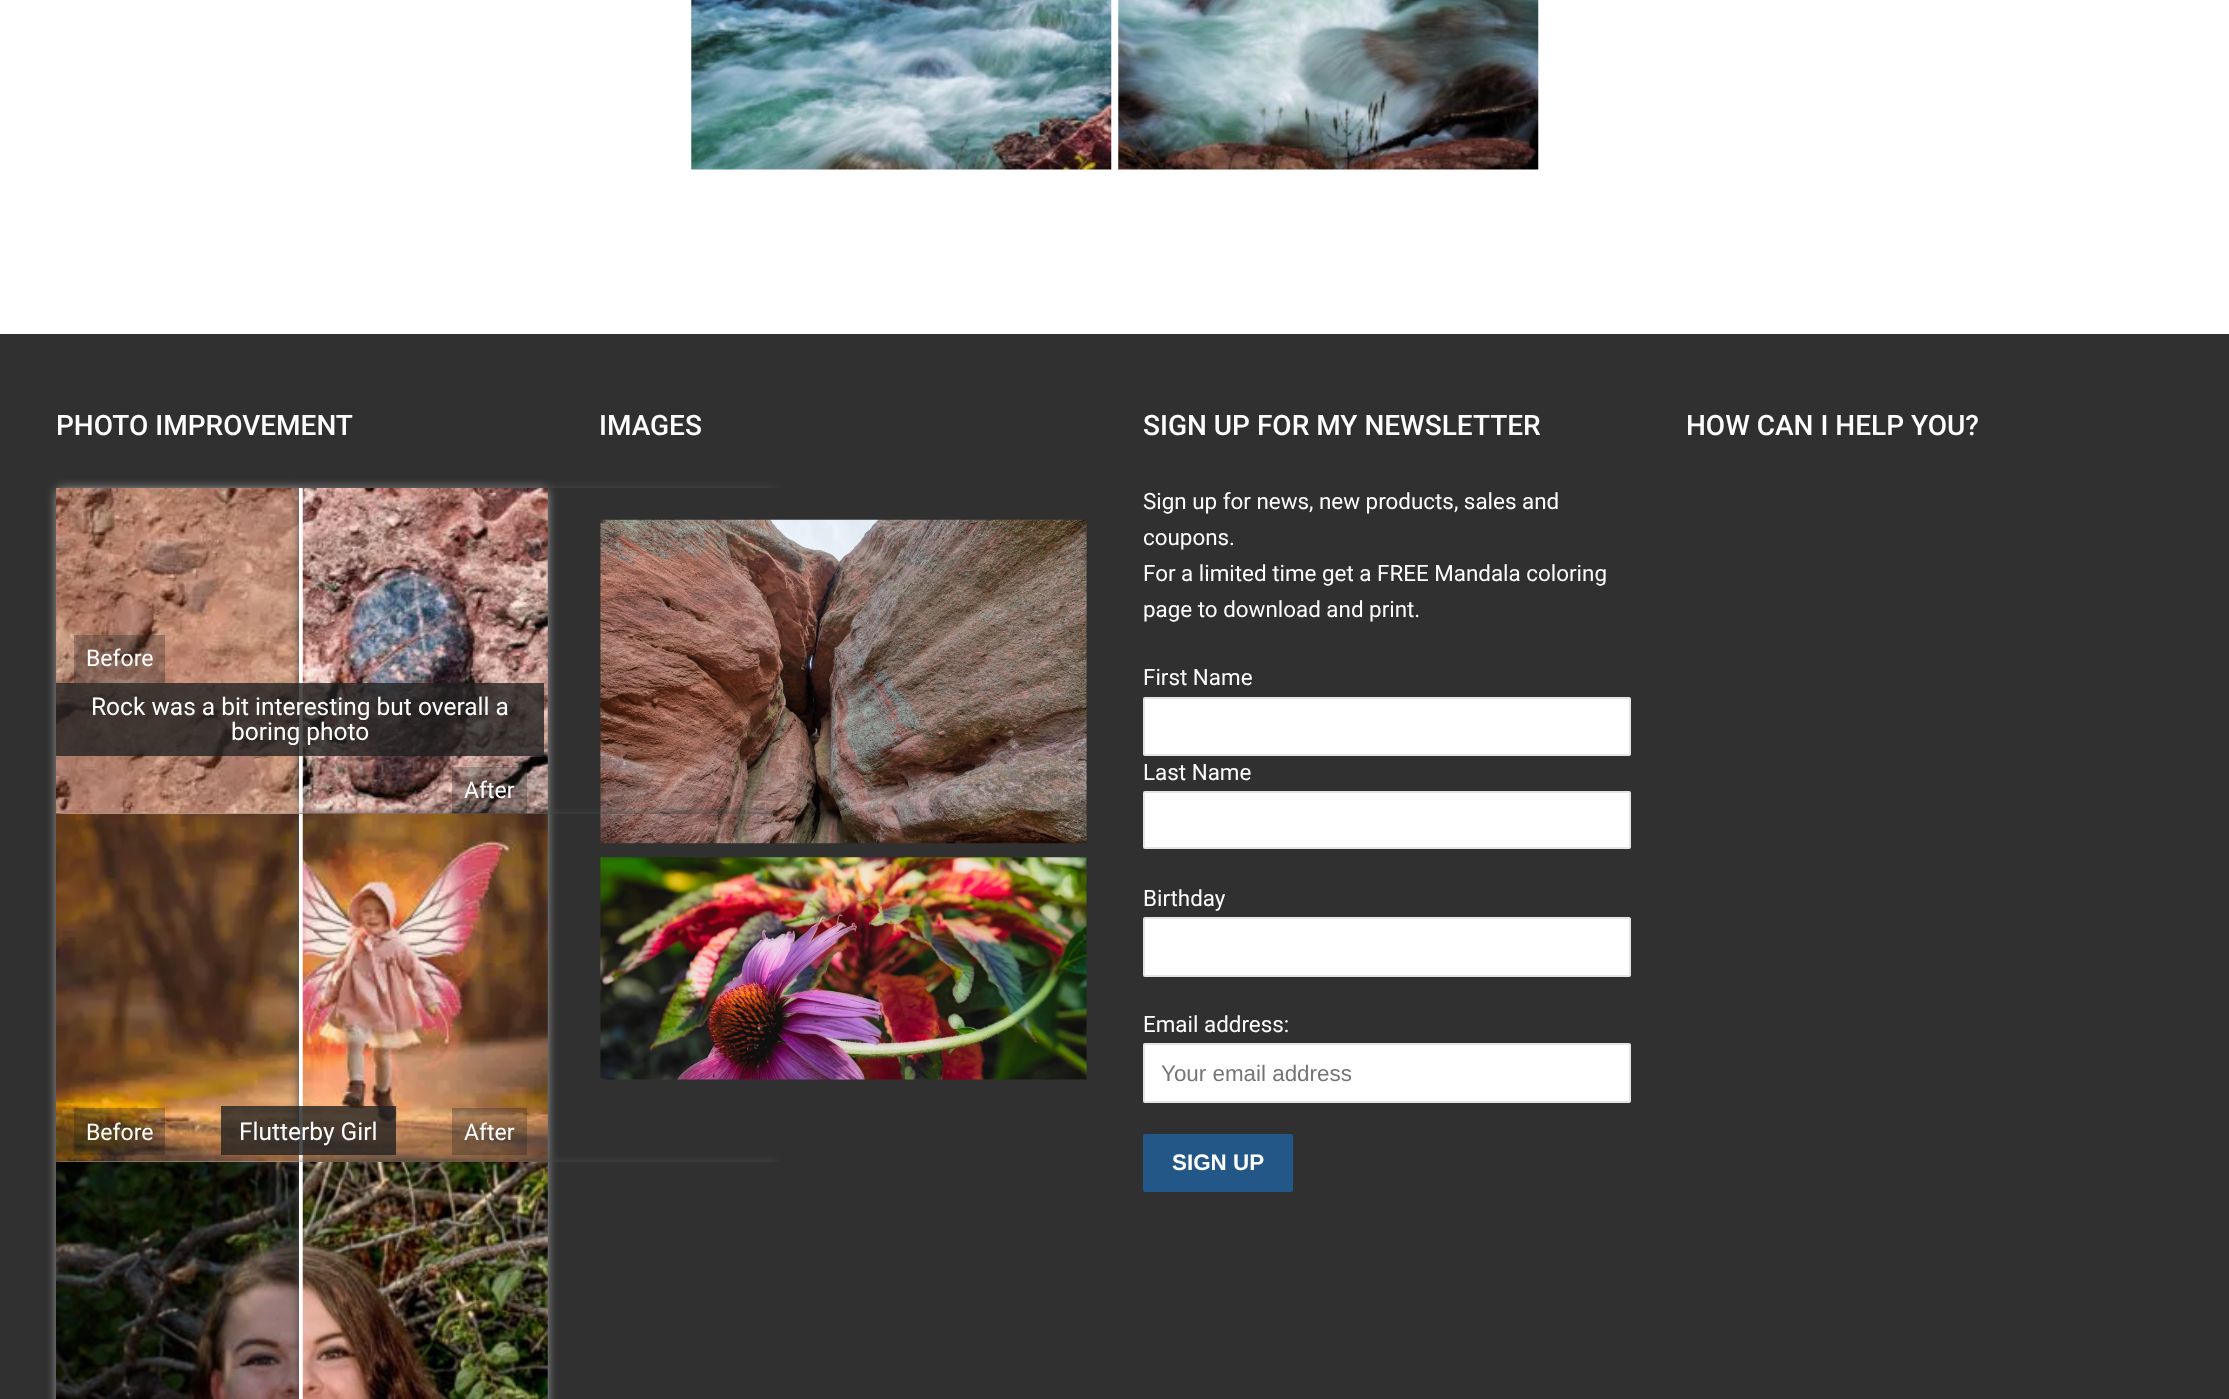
(async () => {
  const canvas = document.querySelector("canvas");
  canvas.width = 2229;
  canvas.height = 1399;
  const ctx = canvas.getContext("2d");
  ctx.miterLimit = 4;
  ctx.fontKerning = "normal";
  async function loadImage(src) {
    const img = new Image();
    img.src = src;
    await img.decode();
    return img;
  }
  let path;

  ctx.fillStyle = "#ffffff";
  ctx.fillRect(0, 0, 2229, 1399);
  ctx.drawImage(await loadImage("img/1.png"), 691, 0, 421, 170);
  ctx.drawImage(await loadImage("img/2.png"), 1118, 0, 421, 170);
  ctx.fillStyle = "#303030";
  ctx.fillRect(0, 334, 2229, 1065);
  ctx.fillStyle = "#c7c7c7";
  ctx.filter = "blur(6px)";
  ctx.beginPath();
  ctx.rect(58, 490, 488, 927);
  ctx.fill();
  ctx.filter = "none";
  ctx.drawImage(await loadImage("img/4.png"), 56, 488, 488, 326);
  ctx.drawImage(await loadImage("img/9.png"), 600, 519, 487, 325);
  ctx.save();
  path = new Path2D("M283 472H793V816H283ZM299 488H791V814H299Z");
  ctx.clip(path, "evenodd");
  ctx.fillStyle = "#474747";
  ctx.filter = "blur(5px)";
  ctx.beginPath();
  ctx.rect(299, 488, 478, 312);
  ctx.fill();
  ctx.filter = "none";
  ctx.restore();
  ctx.fillStyle = "#ffffff";
  ctx.fillRect(299, 488, 4, 326);
  ctx.drawImage(await loadImage("img/3.png"), 302, 488, 246, 326);
  ctx.fillStyle = "rgba(34, 34, 34, 0.3)";
  ctx.fillRect(74, 635, 91, 48);
  ctx.fillStyle = "rgba(34, 34, 34, 0.8)";
  ctx.fillRect(56, 683, 488, 73);
  ctx.drawImage(await loadImage("img/6.png"), 56, 813, 489, 349);
  ctx.drawImage(await loadImage("img/10.png"), 600, 857, 487, 223);
  ctx.save();
  path = new Path2D("M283 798H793V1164H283ZM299 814H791V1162H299Z");
  ctx.clip(path, "evenodd");
  ctx.fillStyle = "#474747";
  ctx.filter = "blur(5px)";
  ctx.beginPath();
  ctx.rect(299, 814, 478, 334);
  ctx.fill();
  ctx.filter = "none";
  ctx.restore();
  ctx.fillStyle = "#ffffff";
  ctx.fillRect(299, 814, 4, 348);
  ctx.drawImage(await loadImage("img/5.png"), 302, 813, 246, 349);
  ctx.fillStyle = "rgba(34, 34, 34, 0.3)";
  ctx.fillRect(452, 767, 75, 47);
  ctx.fillRect(74, 1108, 91, 47);
  ctx.drawImage(await loadImage("img/8.png"), 56, 1161, 488, 238);
  ctx.save();
  path = new Path2D("M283 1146H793V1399H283ZM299 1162H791V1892H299Z");
  ctx.clip(path, "evenodd");
  ctx.fillStyle = "#474747";
  ctx.filter = "blur(5px)";
  ctx.beginPath();
  ctx.rect(299, 1162, 478, 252);
  ctx.fill();
  ctx.filter = "none";
  ctx.restore();
  for (const [x, y, w, h, color] of [
    [221, 1106, 175, 49, "rgba(34, 34, 34, 0.8)"],
    [452, 1108, 75, 47, "rgba(34, 34, 34, 0.3)"],
    [299, 1162, 4, 237, "#ffffff"],
  ]) {
    ctx.fillStyle = color;
    ctx.fillRect(x, y, w, h);
  }
  ctx.drawImage(await loadImage("img/7.png"), 302, 1161, 246, 238);
  ctx.beginPath();
  ctx.roundRect(1144, 698, 486, 57, 1);
  ctx.fill();
  ctx.strokeStyle = "#e5e5e5";
  ctx.lineWidth = 2;
  ctx.stroke();
  ctx.beginPath();
  ctx.roundRect(1144, 792, 486, 56, 1);
  ctx.fill();
  ctx.stroke();
  ctx.beginPath();
  ctx.roundRect(1144, 918, 486, 58, 1);
  ctx.fill();
  ctx.stroke();
  ctx.beginPath();
  ctx.roundRect(1144, 1044, 486, 58, 1);
  ctx.fill();
  ctx.stroke();
  ctx.fillStyle = "#235787";
  ctx.beginPath();
  ctx.roundRect(1143, 1134, 150, 58, 2);
  ctx.fill();
  ctx.font = "500 28px Roboto";
  ctx.fillStyle = "#fdfdfd";
  ctx.fillText("PHOTO IMPROVEMENT", 56, 435);
  ctx.font = "23px Roboto";
  ctx.fillText("Before", 86, 666);
  ctx.font = "24.5px Roboto";
  ctx.fillText("Rock was a bit interesting but overall a", 91, 715);
  ctx.fillText("boring photo", 231, 740);
  ctx.font = "23px Roboto";
  ctx.fillText("After", 464, 798);
  ctx.fillText("Before", 86, 1140);
  ctx.font = "24.5px Roboto";
  ctx.fillText("Flutterby Girl", 239, 1140);
  ctx.font = "23px Roboto";
  ctx.fillText("After", 464, 1140);
  ctx.font = "500 28px Roboto";
  ctx.fillText("IMAGES", 599, 435);
  ctx.fillText("SIGN UP FOR MY NEWSLETTER", 1143, 435);
  ctx.font = "22.4px Roboto";
  for (const [text, x, y] of [
    ["Sign up for news, new products, sales and", 1143, 509],
    ["coupons.", 1143, 545],
    ["For a limited time get a FREE Mandala coloring", 1143, 581],
    ["page to download and print.", 1143, 617],
    ["First Name", 1143, 685],
    ["Last Name", 1143, 780],
    ["Birthday", 1143, 906],
    ["Email address:", 1143, 1032],
  ]) {
    ctx.fillText(text, x, y);
  }
  ctx.font = "22.4px Liberation Sans";
  ctx.fillStyle = "#757575";
  ctx.fillText("Your email address", 1161, 1081);
  ctx.font = "bold 22.4px Liberation Sans";
  ctx.fillStyle = "#fdfdfd";
  ctx.fillText("SIGN UP", 1172, 1170);
  ctx.font = "500 28px Roboto";
  ctx.fillText("HOW CAN I HELP YOU?", 1686, 435);
})();
